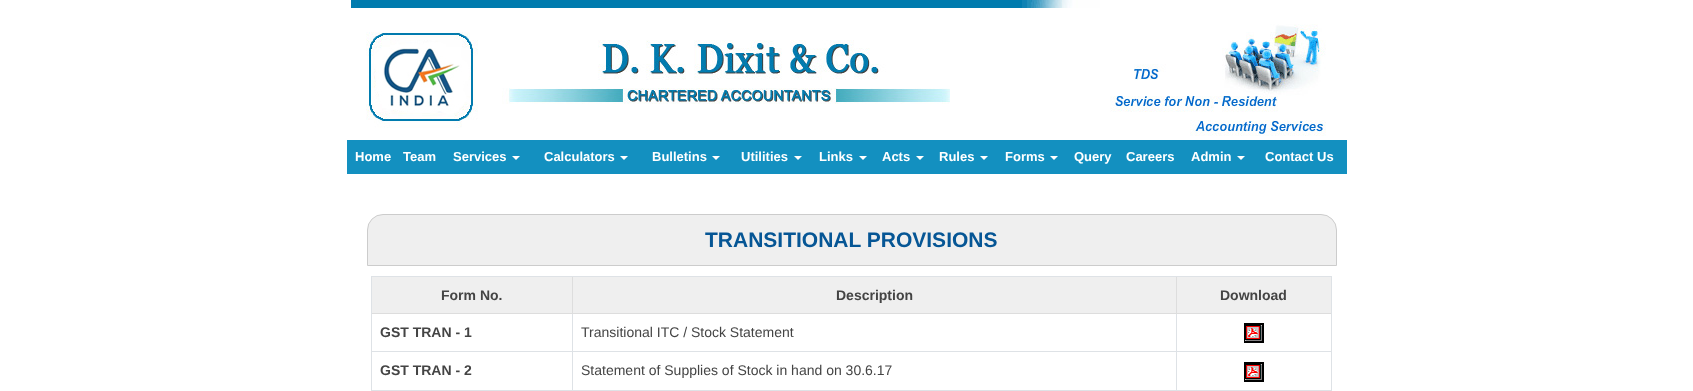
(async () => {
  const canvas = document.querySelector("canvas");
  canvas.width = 1693;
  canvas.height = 391;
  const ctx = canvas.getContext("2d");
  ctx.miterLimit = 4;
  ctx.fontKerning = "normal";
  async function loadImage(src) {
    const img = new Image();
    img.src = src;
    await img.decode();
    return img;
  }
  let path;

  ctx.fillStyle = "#ffffff";
  ctx.fillRect(0, 0, 1693, 391);
  ctx.drawImage(await loadImage("img/1.png"), 351, 0, 975, 136);
  ctx.fillStyle = "#1390c0";
  ctx.fillRect(347, 140, 1000, 34);
  ctx.fillStyle = "#ffffff";
  path = new Path2D("M512 156H520L516 160Z");
  ctx.fill(path);
  path = new Path2D("M620 156H628L624 160Z");
  ctx.fill(path);
  path = new Path2D("M712 156H720L716 160Z");
  ctx.fill(path);
  path = new Path2D("M794 156H802L798 160Z");
  ctx.fill(path);
  path = new Path2D("M859 156H867L863 160Z");
  ctx.fill(path);
  path = new Path2D("M916 156H924L920 160Z");
  ctx.fill(path);
  path = new Path2D("M980 156H988L984 160Z");
  ctx.fill(path);
  path = new Path2D("M1050 156H1058L1054 160Z");
  ctx.fill(path);
  path = new Path2D("M1237 156H1245L1241 160Z");
  ctx.fill(path);
  ctx.fillStyle = "#efefef";
  ctx.beginPath();
  ctx.roundRect(367.5, 214.5, 969, 51, [15.5, 15.5, 0, 0]);
  ctx.fill();
  ctx.strokeStyle = "#cccccc";
  ctx.stroke();
  for (const [x, y, w, h, color] of [
    [371, 276, 961, 1, "#dee2e6"],
    [1331, 276, 1, 115, "#dee2e6"],
    [371, 390, 961, 1, "#dee2e6"],
    [371, 276, 1, 115, "#dee2e6"],
    [372, 277, 200, 36, "#efefef"],
    [1176, 351, 155, 1, "#dee2e6"],
    [1176, 351, 1, 39, "#dee2e6"],
    [572, 351, 605, 1, "#dee2e6"],
    [1176, 313, 1, 39, "#dee2e6"],
    [1176, 313, 155, 1, "#dddddd"],
    [1176, 277, 1, 37, "#dddddd"],
    [572, 351, 1, 39, "#dee2e6"],
    [372, 351, 201, 1, "#dee2e6"],
    [572, 313, 1, 39, "#dee2e6"],
    [572, 313, 605, 1, "#dddddd"],
    [572, 277, 1, 37, "#dddddd"],
    [372, 313, 201, 1, "#dddddd"],
    [573, 277, 603, 36, "#efefef"],
    [1177, 277, 154, 36, "#efefef"],
  ]) {
    ctx.fillStyle = color;
    ctx.fillRect(x, y, w, h);
  }
  ctx.drawImage(await loadImage("img/2.png"), 1244, 323, 20, 20);
  ctx.drawImage(await loadImage("img/2.png"), 1244, 362, 20, 20);
  ctx.font = "bold 13px Liberation Sans";
  ctx.fillStyle = "#ffffff";
  for (const [text, x, y] of [
    ["Home", 355, 161],
    ["Team", 403, 161],
    ["Services", 453, 161],
    ["Calculators", 544, 161],
    ["Bulletins", 652, 161],
    ["Utilities", 741, 161],
    ["Links", 819, 161],
    ["Acts", 882, 161],
    ["Rules", 939, 161],
    ["Forms", 1005, 161],
    ["Query", 1074, 161],
    ["Careers", 1126, 161],
    ["Admin", 1191, 161],
    ["Contact Us", 1265, 161],
  ]) {
    ctx.fillText(text, x, y);
  }
  ctx.font = "bold 21px Liberation Sans";
  ctx.fillStyle = "#065695";
  ctx.fillText("TRANSITIONAL PROVISIONS", 705, 247);
  ctx.font = "bold 14px Liberation Sans";
  ctx.fillStyle = "#444444";
  for (const [text, x, y] of [
    ["Form No.", 441, 300],
    ["Description", 836, 300],
    ["Download", 1220, 300],
    ["GST TRAN - 1", 380, 337],
  ]) {
    ctx.fillText(text, x, y);
  }
  ctx.font = "14px Liberation Sans";
  ctx.fillText("Transitional ITC / Stock Statement", 581, 337);
  ctx.font = "bold 14px Liberation Sans";
  ctx.fillText("GST TRAN - 2", 380, 375);
  ctx.font = "14px Liberation Sans";
  ctx.fillText("Statement of Supplies of Stock in hand on 30.6.17", 581, 375);
})();
